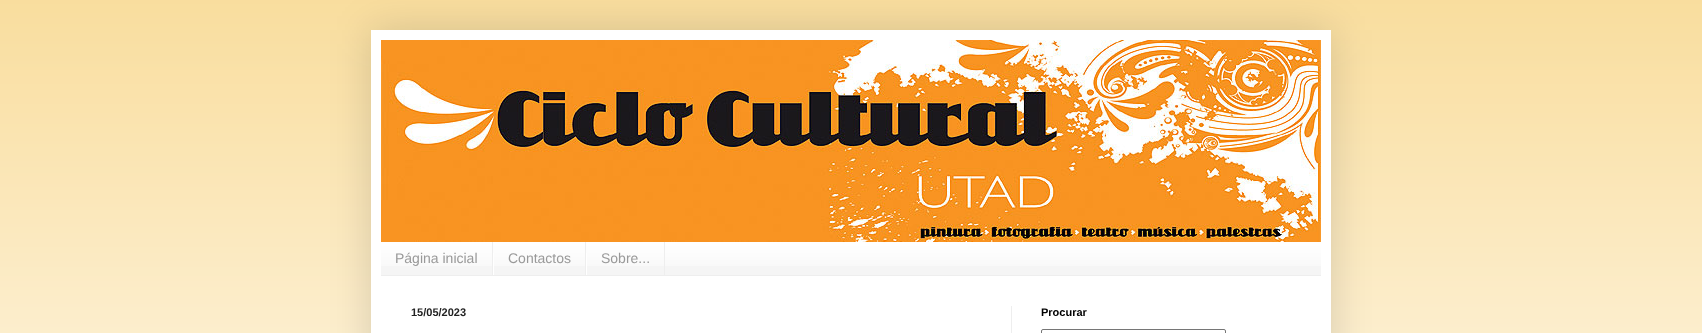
(async () => {
  const canvas = document.querySelector("canvas");
  canvas.width = 1702;
  canvas.height = 333;
  const ctx = canvas.getContext("2d");
  ctx.miterLimit = 4;
  ctx.fontKerning = "normal";
  async function loadImage(src) {
    const img = new Image();
    img.src = src;
    await img.decode();
    return img;
  }

  ctx.fillStyle = "#f9dc99";
  ctx.fillRect(0, 0, 1702, 333);
  ctx.drawImage(await loadImage("img/1.png"), 0, 0, 1702, 333);
  ctx.fillStyle = "rgba(0, 0, 0, 0.15)";
  ctx.filter = "blur(20px)";
  ctx.beginPath();
  ctx.rect(371, 30, 960, 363);
  ctx.fill();
  ctx.filter = "none";
  ctx.fillStyle = "#ffffff";
  ctx.fillRect(371, 30, 960, 303);
  ctx.drawImage(await loadImage("img/2.png"), 381, 40, 940, 202);
  ctx.fillStyle = "#f5f5f5";
  ctx.fillRect(381, 243, 940, 32);
  ctx.drawImage(await loadImage("img/3.png"), 381, 242, 940, 24);
  for (const [x, y, w, h, color] of [
    [381, 275, 940, 1, "#eeeeee"],
    [492, 242, 1, 33, "#eeeeee"],
    [585, 242, 1, 33, "#eeeeee"],
    [493, 253, 1, 22, "#ffffff"],
    [664, 242, 1, 33, "#eeeeee"],
    [586, 253, 1, 22, "#ffffff"],
    [1011, 306, 1, 27, "#eeeeee"],
  ]) {
    ctx.fillStyle = color;
    ctx.fillRect(x, y, w, h);
  }
  ctx.beginPath();
  ctx.roundRect(1041.5, 329.5, 184, 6, 1.5);
  ctx.strokeStyle = "#767676";
  ctx.stroke();
  ctx.font = "14px Liberation Sans";
  ctx.fillStyle = "#999999";
  for (const [text, x, y] of [
    ["Página inicial", 395, 263],
    ["Contactos", 508, 263],
    ["Sobre...", 601, 263],
  ]) {
    ctx.fillText(text, x, y);
  }
  ctx.font = "bold 11px Liberation Sans";
  ctx.fillStyle = "#222222";
  ctx.fillText("15/05/2023", 411, 316);
  ctx.fillStyle = "#000000";
  ctx.fillText("Procurar", 1041, 316);
})();
